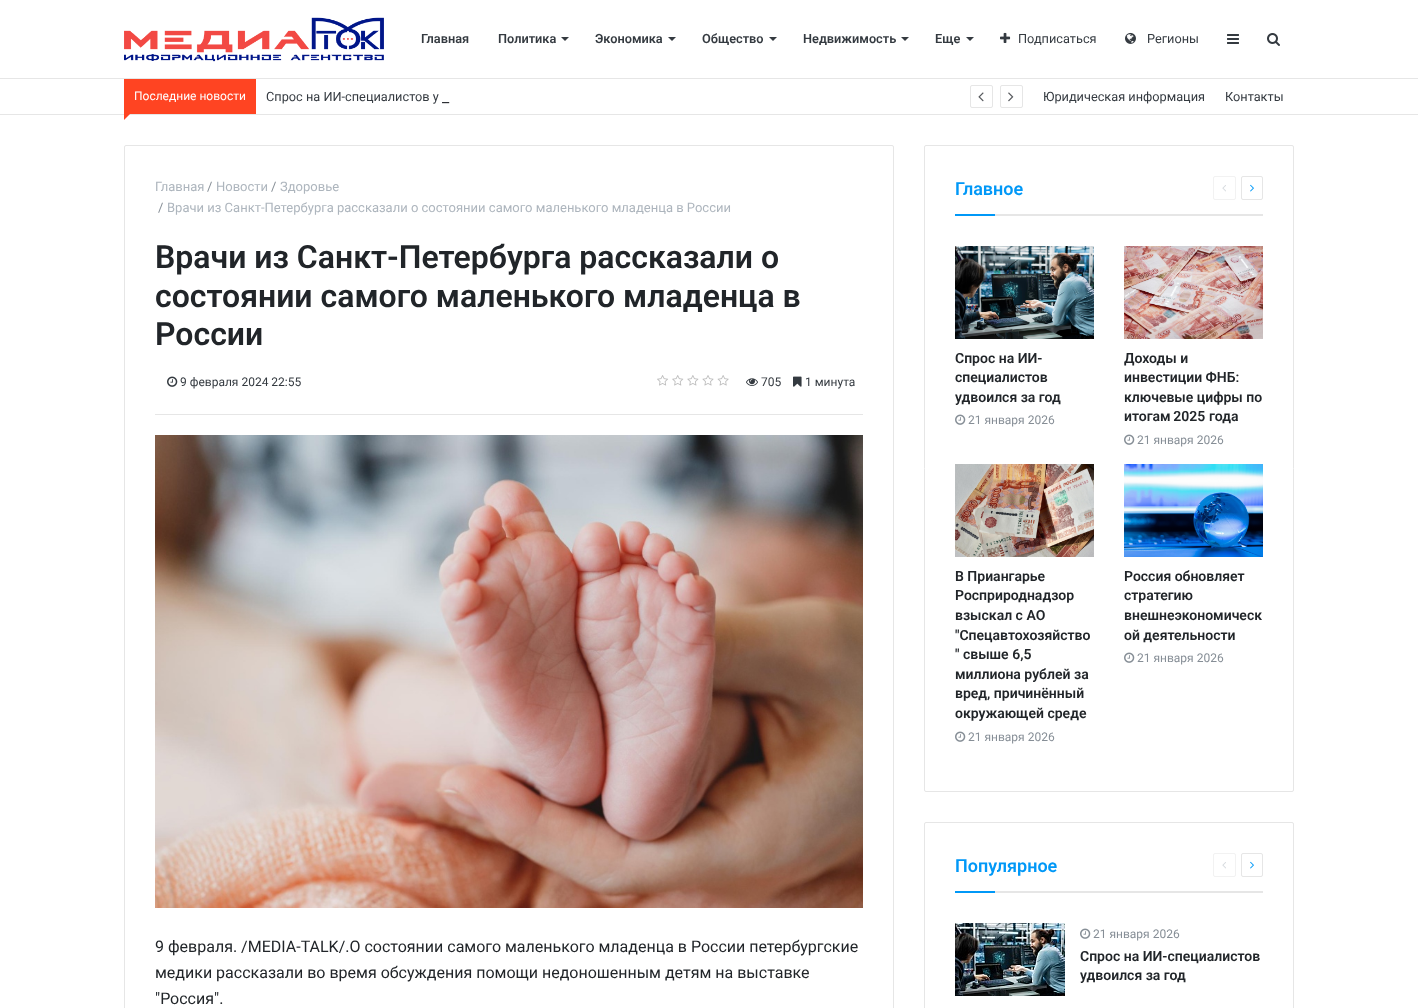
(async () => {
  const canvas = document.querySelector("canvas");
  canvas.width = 1418;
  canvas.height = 1008;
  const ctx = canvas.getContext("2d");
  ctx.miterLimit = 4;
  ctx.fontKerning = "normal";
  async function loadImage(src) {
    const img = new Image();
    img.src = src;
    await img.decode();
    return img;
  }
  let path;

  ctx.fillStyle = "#ffffff";
  ctx.fillRect(0, 0, 1418, 1008);
  ctx.drawImage(await loadImage("img/1.png"), 124, 17, 260, 45);
  ctx.fillStyle = "#343a40";
  path = new Path2D("M561 37H569L565 41Z");
  ctx.fill(path);
  path = new Path2D("M668 37H676L672 41Z");
  ctx.fill(path);
  path = new Path2D("M769 37H777L773 41Z");
  ctx.fill(path);
  path = new Path2D("M901 37H909L905 41Z");
  ctx.fill(path);
  path = new Path2D("M966 37H974L970 41Z");
  ctx.fill(path);
  ctx.drawImage(await loadImage("img/2.png"), 1000, 32, 11, 11);
  ctx.drawImage(await loadImage("img/3.png"), 1125, 32, 11, 12);
  ctx.drawImage(await loadImage("img/4.png"), 1227, 34, 12, 10);
  ctx.drawImage(await loadImage("img/5.png"), 1267, 33, 13, 13);
  for (const [x, y, w, h, color] of [
    [0, 78, 1418, 1, "#e6e6e6"],
    [0, 114, 1418, 1, "#e6e6e6"],
    [124, 79, 132, 35, "#ff4422"],
  ]) {
    ctx.fillStyle = color;
    ctx.fillRect(x, y, w, h);
  }
  path = new Path2D("M124 111H133L124 120Z");
  ctx.fill(path);
  ctx.beginPath();
  ctx.roundRect(970.5, 85.5, 22, 22, 1.5);
  ctx.strokeStyle = "#e6e6e6";
  ctx.stroke();
  ctx.drawImage(await loadImage("img/6.png"), 978, 92, 6, 10);
  ctx.beginPath();
  ctx.roundRect(1000.5, 85.5, 22, 22, 1.5);
  ctx.stroke();
  ctx.drawImage(await loadImage("img/7.png"), 1008, 92, 6, 10);
  ctx.beginPath();
  ctx.roundRect(124.5, 145.5, 769, 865, 1.5);
  ctx.stroke();
  ctx.fillStyle = "#e6e6e6";
  ctx.fillRect(155, 414, 708, 1);
  ctx.drawImage(await loadImage("img/8.png"), 167, 376, 11, 11);
  ctx.drawImage(await loadImage("img/9.png"), 657, 375, 72, 11);
  ctx.drawImage(await loadImage("img/10.png"), 746, 378, 12, 8);
  ctx.drawImage(await loadImage("img/11.png"), 793, 376, 9, 11);
  ctx.drawImage(await loadImage("img/12.png"), 155, 435, 708, 473);
  ctx.beginPath();
  ctx.roundRect(924.5, 145.5, 369, 646, 1.5);
  ctx.stroke();
  ctx.fillRect(995, 214, 268, 2);
  ctx.beginPath();
  ctx.roundRect(1213.5, 176.5, 22, 23, 1.5);
  ctx.strokeStyle = "#f2f2f2";
  ctx.stroke();
  ctx.drawImage(await loadImage("img/13.png"), 1222, 185, 4, 7);
  ctx.beginPath();
  ctx.roundRect(1241.5, 176.5, 21, 23, 1.5);
  ctx.strokeStyle = "#e6e6e6";
  ctx.stroke();
  ctx.drawImage(await loadImage("img/14.png"), 1250, 184, 4, 8);
  ctx.fillStyle = "#0098f7";
  ctx.fillRect(955, 214, 40, 2);
  ctx.drawImage(await loadImage("img/15.png"), 955, 246, 139, 93);
  ctx.drawImage(await loadImage("img/16.png"), 955, 414, 11, 11);
  ctx.drawImage(await loadImage("img/17.png"), 1124, 246, 139, 93);
  ctx.drawImage(await loadImage("img/16.png"), 1124, 434, 11, 11);
  ctx.drawImage(await loadImage("img/18.png"), 955, 464, 139, 93);
  ctx.drawImage(await loadImage("img/16.png"), 955, 731, 11, 11);
  ctx.drawImage(await loadImage("img/19.png"), 1124, 464, 139, 93);
  ctx.drawImage(await loadImage("img/16.png"), 1124, 652, 11, 11);
  ctx.beginPath();
  ctx.roundRect(924.5, 822.5, 369, 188, 1.5);
  ctx.stroke();
  ctx.fillStyle = "#e6e6e6";
  ctx.fillRect(995, 891, 268, 2);
  ctx.beginPath();
  ctx.roundRect(1213.5, 853.5, 22, 23, 1.5);
  ctx.strokeStyle = "#f2f2f2";
  ctx.stroke();
  ctx.drawImage(await loadImage("img/13.png"), 1222, 862, 4, 7);
  ctx.beginPath();
  ctx.roundRect(1241.5, 853.5, 21, 23, 1.5);
  ctx.strokeStyle = "#e6e6e6";
  ctx.stroke();
  ctx.drawImage(await loadImage("img/14.png"), 1250, 861, 4, 8);
  ctx.fillStyle = "#0098f7";
  ctx.fillRect(955, 891, 40, 2);
  ctx.drawImage(await loadImage("img/20.png"), 955, 923, 110, 73);
  ctx.drawImage(await loadImage("img/16.png"), 1080, 928, 11, 11);
  ctx.font = "600 12.75px Roboto";
  ctx.fillStyle = "#343a40";
  for (const [text, x, y] of [
    ["Главная", 421, 43],
    ["Политика", 498, 43],
    ["Экономика", 595, 43],
    ["Общество", 702, 43],
    ["Недвижимость", 803, 43],
    ["Еще", 935, 43],
  ]) {
    ctx.fillText(text, x, y);
  }
  ctx.font = "12.75px Roboto";
  ctx.fillText("Подписаться", 1018, 43);
  ctx.fillText("Регионы", 1147, 43);
  ctx.font = "12px Roboto";
  ctx.fillStyle = "#ffffff";
  ctx.fillText("Последние новости", 134, 100);
  ctx.font = "12.75px Roboto";
  ctx.fillStyle = "#343a40";
  ctx.fillText("Спрос на ИИ-специалистов у", 266, 101);
  ctx.font = "16px Roboto";
  ctx.fillStyle = "#2c2f34";
  ctx.fillText("_", 442, 102);
  ctx.font = "12.75px Roboto";
  ctx.fillStyle = "#343a40";
  ctx.fillText("Юридическая информация", 1043, 101);
  ctx.fillText("Контакты", 1225, 101);
  ctx.font = "13px Roboto";
  ctx.fillStyle = "#adb5bd";
  ctx.fillText("Главная", 155, 191);
  ctx.fillStyle = "#868e96";
  ctx.fillText("/", 207, 191);
  ctx.fillStyle = "#adb5bd";
  ctx.fillText("Новости", 216, 191);
  ctx.fillStyle = "#868e96";
  ctx.fillText("/", 271, 191);
  ctx.fillStyle = "#adb5bd";
  ctx.fillText("Здоровье", 280, 191);
  ctx.fillStyle = "#868e96";
  ctx.fillText("/", 158, 212);
  ctx.fillStyle = "#adb5bd";
  ctx.fillText("Врачи из Санкт-Петербурга рассказали о состоянии самого маленького младенца в России", 167, 212);
  ctx.font = "600 32px Roboto";
  ctx.fillStyle = "#212529";
  for (const [text, x, y] of [
    ["Врачи из Санкт-Петербурга рассказали о", 155, 268],
    ["состоянии самого маленького младенца в", 155, 307],
    ["России", 155, 345],
  ]) {
    ctx.fillText(text, x, y);
  }
  ctx.font = "12px Roboto";
  ctx.fillStyle = "#343a40";
  for (const [text, x, y] of [
    ["9 февраля 2024 22:55", 180, 386],
    ["705", 761, 386],
    ["1 минута", 805, 386],
  ]) {
    ctx.fillText(text, x, y);
  }
  ctx.font = "16px Roboto";
  ctx.fillStyle = "#212529";
  for (const [text, x, y] of [
    ["9 февраля. /MEDIA-TALK/.О состоянии самого маленького младенца в России петербургские", 155, 952],
    ["медики рассказали во время обсуждения помощи недоношенным детям на выставке", 155, 978],
    ["\"Россия\".", 155, 1004],
  ]) {
    ctx.fillText(text, x, y);
  }
  ctx.font = "600 18px Roboto";
  ctx.fillStyle = "#0098f7";
  ctx.fillText("Главное", 955, 195);
  ctx.font = "600 14px Roboto";
  ctx.fillStyle = "#212529";
  for (const [text, x, y] of [
    ["Спрос на ИИ-", 955, 363],
    ["специалистов", 955, 382],
    ["удвоился за год", 955, 402],
  ]) {
    ctx.fillText(text, x, y);
  }
  ctx.font = "12px Roboto";
  ctx.fillStyle = "#868e96";
  ctx.fillText("21 января 2026", 968, 424);
  ctx.font = "600 14px Roboto";
  ctx.fillStyle = "#212529";
  for (const [text, x, y] of [
    ["Доходы и", 1124, 363],
    ["инвестиции ФНБ:", 1124, 382],
    ["ключевые цифры по", 1124, 402],
  ]) {
    ctx.fillText(text, x, y);
  }
  ctx.wordSpacing = "-1px";
  ctx.fillText("итогам 2025", 1124, 421);
  ctx.wordSpacing = "0px";
  ctx.fillText("года", 1209, 421);
  ctx.font = "12px Roboto";
  ctx.fillStyle = "#868e96";
  ctx.fillText("21 января 2026", 1137, 444);
  ctx.font = "600 14px Roboto";
  ctx.fillStyle = "#212529";
  for (const [text, x, y] of [
    ["В Приангарье", 955, 581],
    ["Росприроднадзор", 955, 600],
    ["взыскал с АО", 955, 620],
    ["\"Спецавтохозяйство", 955, 640],
    ["\" свыше 6,5", 955, 659],
    ["миллиона рублей за", 955, 679],
    ["вред, причинённый", 955, 698],
    ["окружающей среде", 955, 718],
  ]) {
    ctx.fillText(text, x, y);
  }
  ctx.font = "12px Roboto";
  ctx.fillStyle = "#868e96";
  ctx.fillText("21 января 2026", 968, 741);
  ctx.font = "600 14px Roboto";
  ctx.fillStyle = "#212529";
  for (const [text, x, y] of [
    ["Россия обновляет", 1124, 581],
    ["стратегию", 1124, 600],
    ["внешнеэкономическ", 1124, 620],
    ["ой деятельности", 1124, 640],
  ]) {
    ctx.fillText(text, x, y);
  }
  ctx.font = "12px Roboto";
  ctx.fillStyle = "#868e96";
  ctx.fillText("21 января 2026", 1137, 662);
  ctx.font = "600 18px Roboto";
  ctx.fillStyle = "#0098f7";
  ctx.fillText("Популярное", 955, 872);
  ctx.font = "12px Roboto";
  ctx.fillStyle = "#868e96";
  ctx.fillText("21 января 2026", 1093, 938);
  ctx.font = "600 14px Roboto";
  ctx.fillStyle = "#212529";
  ctx.fillText("Спрос на ИИ-специалистов", 1080, 961);
  ctx.fillText("удвоился за год", 1080, 980);
})();
